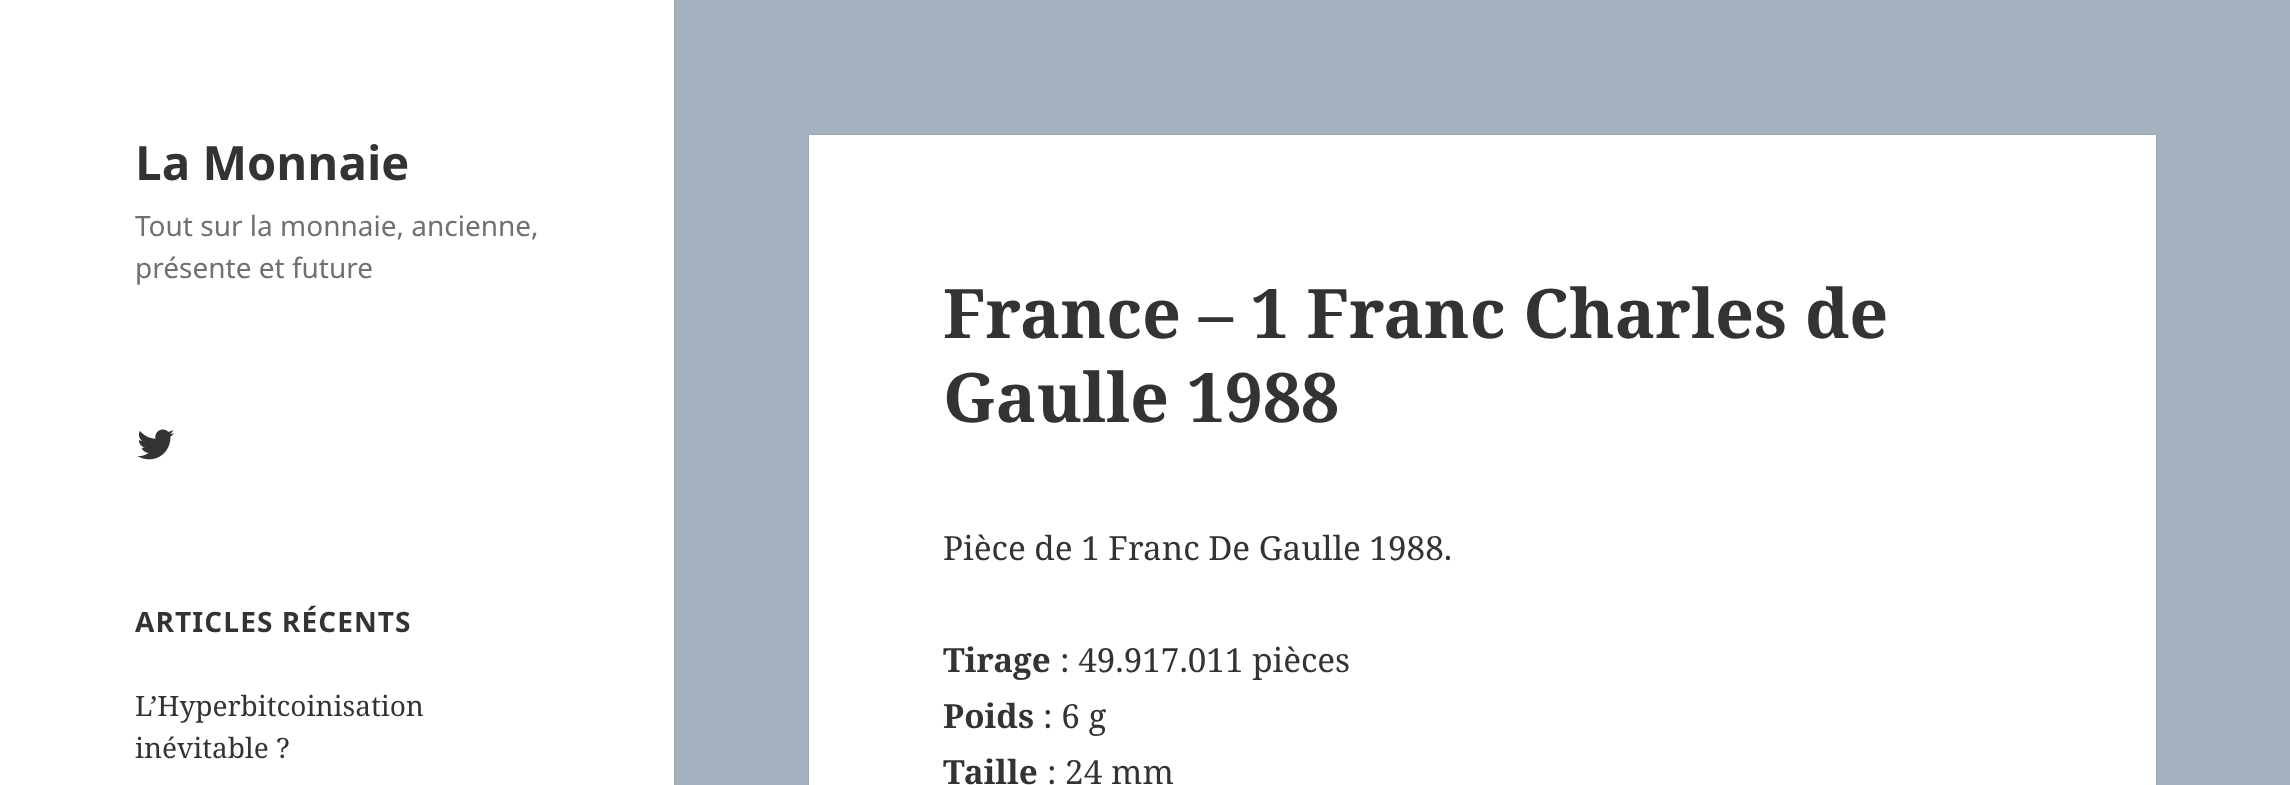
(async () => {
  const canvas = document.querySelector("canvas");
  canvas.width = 2290;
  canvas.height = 785;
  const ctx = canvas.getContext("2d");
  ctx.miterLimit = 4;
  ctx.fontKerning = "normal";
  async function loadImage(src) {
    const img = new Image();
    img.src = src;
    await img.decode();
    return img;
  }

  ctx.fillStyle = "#a4b2bf";
  ctx.fillRect(0, 0, 2290, 785);
  ctx.fillStyle = "rgba(0, 0, 0, 0.15)";
  ctx.filter = "blur(1px)";
  ctx.beginPath();
  ctx.rect(0, 0, 674, 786);
  ctx.fill();
  ctx.filter = "none";
  ctx.fillStyle = "#ffffff";
  ctx.fillRect(0, 0, 674, 785);
  ctx.drawImage(await loadImage("img/1.png"), 137, 429, 37, 31);
  ctx.fillStyle = "rgba(0, 0, 0, 0.15)";
  ctx.filter = "blur(1px)";
  ctx.beginPath();
  ctx.rect(809, 135, 1347, 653);
  ctx.fill();
  ctx.filter = "none";
  ctx.fillStyle = "#ffffff";
  ctx.fillRect(809, 135, 1347, 650);
  ctx.font = "bold 47.25px Noto Sans";
  ctx.fillStyle = "#333333";
  ctx.fillText("La Monnaie", 135, 180);
  ctx.font = "28px Noto Sans";
  ctx.fillStyle = "#707070";
  ctx.fillText("Tout sur la monnaie, ancienne,", 135, 236);
  ctx.fillText("présente et future", 135, 278);
  ctx.letterSpacing = "1.1px";
  ctx.font = "bold 28px Noto Sans";
  ctx.fillStyle = "#333333";
  ctx.fillText("ARTICLES RÉCENTS", 135, 632);
  ctx.letterSpacing = "0px";
  ctx.font = "28px Noto Serif";
  ctx.fillText("L’Hyperbitcoinisation", 135, 716);
  ctx.fillText("inévitable ?", 135, 758);
  ctx.font = "bold 68.25px Noto Serif";
  ctx.fillText("France – 1 Franc Charles de", 943, 338);
  ctx.fillText("Gaulle 1988", 943, 422);
  ctx.font = "33.25px Noto Serif";
  ctx.fillText("Pièce de 1 Franc De Gaulle 1988.", 943, 560);
  ctx.font = "bold 33.25px Noto Serif";
  ctx.fillText("Tirage", 943, 672);
  ctx.font = "33.25px Noto Serif";
  ctx.fillText(": 49.917.011 pièces", 1060, 672);
  ctx.font = "bold 33.25px Noto Serif";
  ctx.fillText("Poids", 943, 728);
  ctx.font = "33.25px Noto Serif";
  ctx.fillText(": 6 g", 1043, 728);
  ctx.font = "bold 33.25px Noto Serif";
  ctx.fillText("Taille", 943, 784);
  ctx.font = "33.25px Noto Serif";
  ctx.fillText(": 24 mm", 1047, 784);
})();
